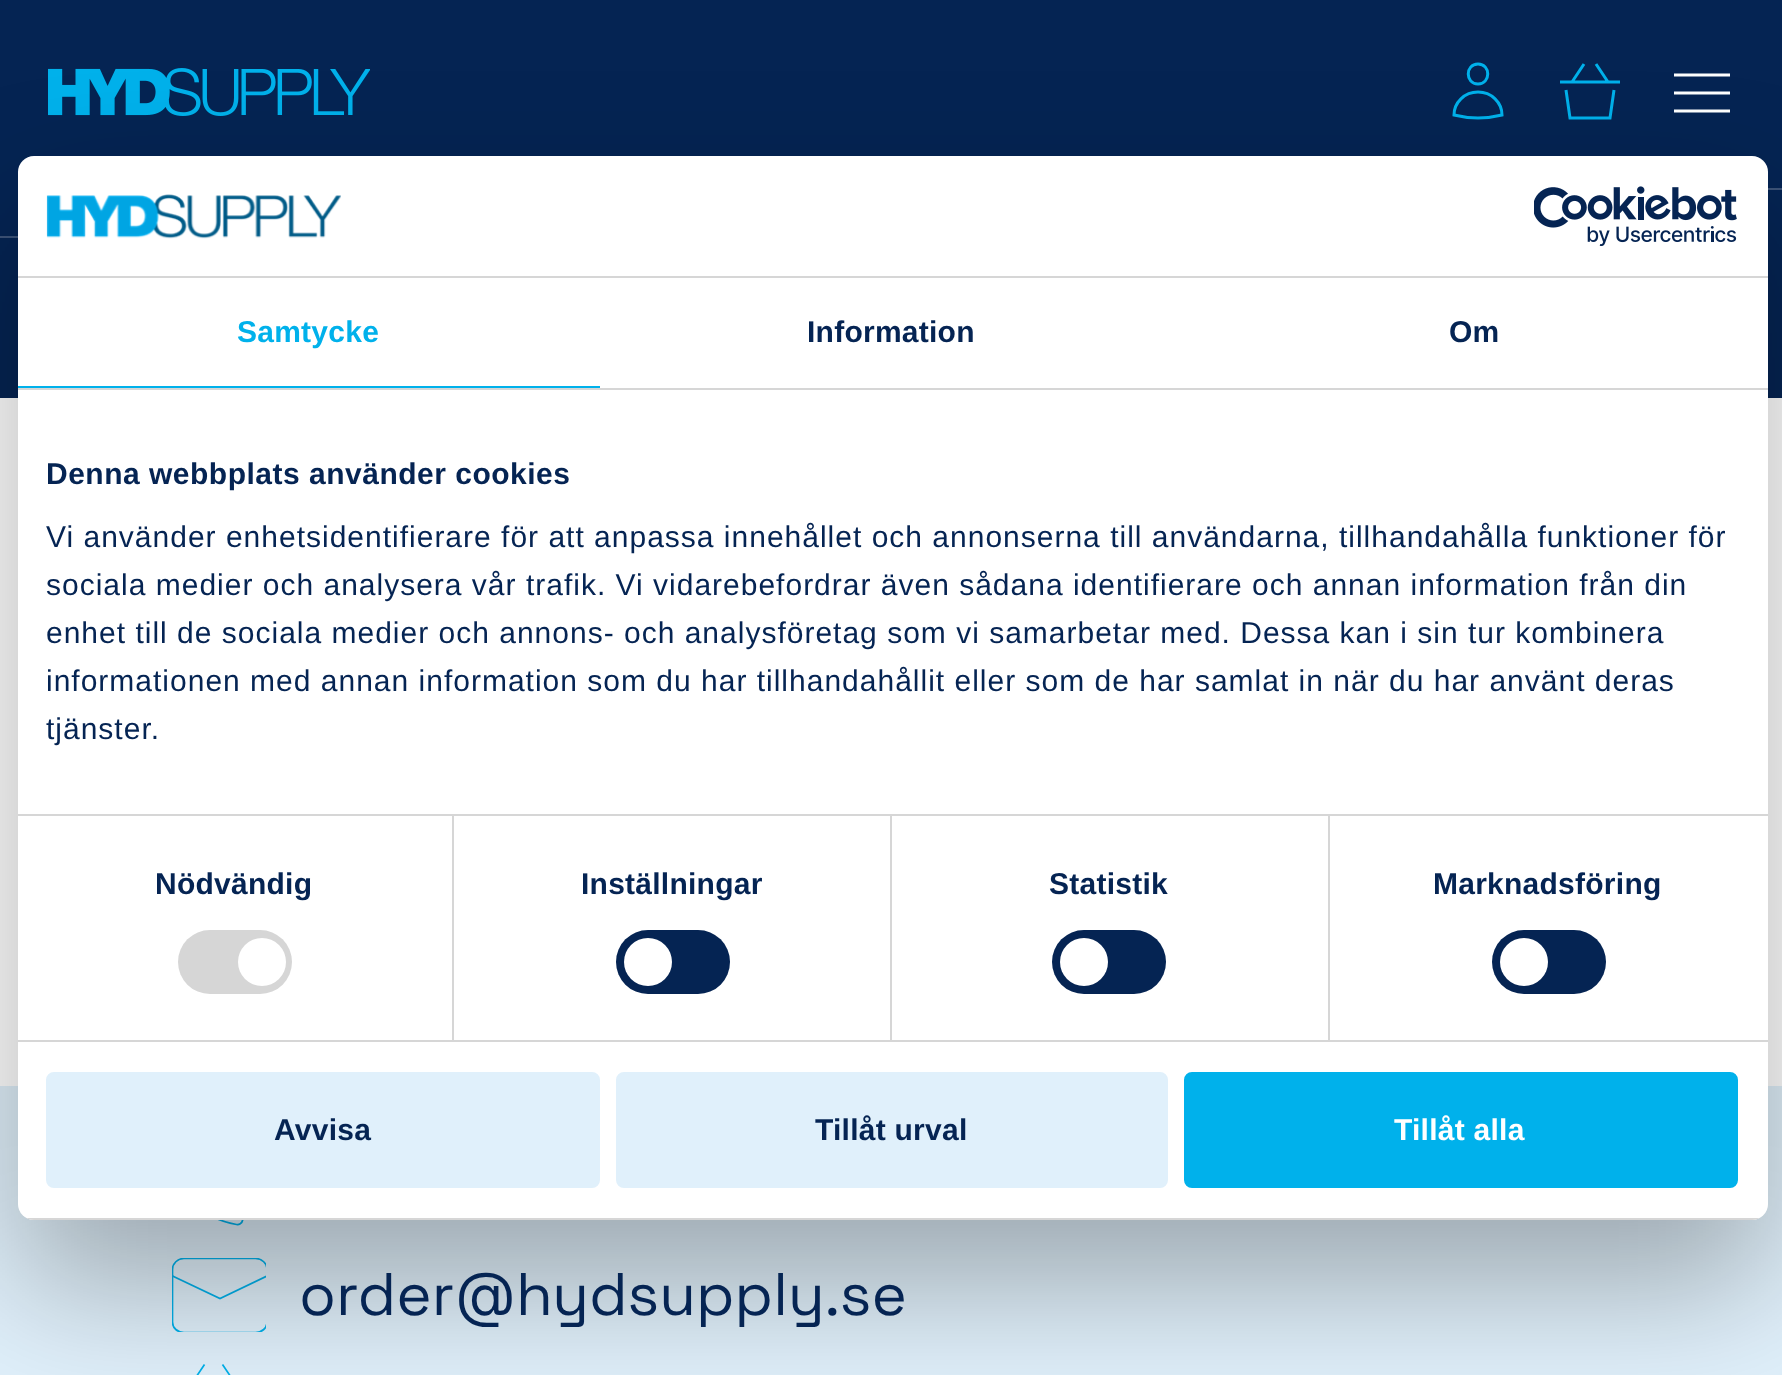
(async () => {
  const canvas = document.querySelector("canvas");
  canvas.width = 1782;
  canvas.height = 1375;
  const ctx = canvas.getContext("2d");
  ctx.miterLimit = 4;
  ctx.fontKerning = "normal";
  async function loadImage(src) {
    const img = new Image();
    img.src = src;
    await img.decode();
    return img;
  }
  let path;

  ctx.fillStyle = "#052453";
  ctx.fillRect(0, 0, 1782, 1375);
  ctx.drawImage(await loadImage("img/3.png"), 48, 68, 322, 48);
  path = new Path2D("M1478 84C1491 84 1491 64 1478 64C1465 64 1465 84 1478 84ZM1478 92C1464.5 92 1454 102.5 1454 115C1470 119 1486 119 1502 115C1502 102.5 1491.5 92 1478 92Z");
  ctx.strokeStyle = "#00b1eb";
  ctx.lineWidth = 3;
  ctx.stroke(path);
  path = new Path2D("M1572 82L1584 64M1608 82L1596 64M1614 90L1610 118H1570L1566 90M1560 82H1620");
  ctx.stroke(path);
  path = new Path2D("M1674 93H1730M1674 75H1730M1674 111H1730");
  ctx.strokeStyle = "#ffffff";
  ctx.stroke(path);
  ctx.fillStyle = "#3d5479";
  path = new Path2D("M0 236V398H1782V188H915L867 236Z");
  ctx.fill(path);
  ctx.fillStyle = "#052453";
  path = new Path2D("M0 238V398H1782V190H915L867 238Z");
  ctx.fill(path);
  ctx.fillStyle = "#ffffff";
  ctx.fillRect(0, 398, 1782, 688);
  ctx.fillStyle = "#e0f0fb";
  ctx.fillRect(0, 1086, 1782, 289);
  path = new Path2D("M215.5 1204.5L223.5 1194L246.5 1204.5L242.5 1220.5C242 1223.5 239 1225 236.5 1224.5C202 1218.5 178.5 1195.5 173 1161C172.5 1158 174 1155.5 176.5 1155L193 1150.5L203.5 1173.5L193 1182C198 1191.5 206 1199 215.5 1204.5Z");
  ctx.strokeStyle = "#00b1eb";
  ctx.lineWidth = 1.7;
  ctx.stroke(path);
  ctx.save();
  ctx.beginPath();
  ctx.rect(172, 1258, 94, 74);
  ctx.clip();
  path = new Path2D("M266 1276.5L267 1276L220 1298.5L172.5 1276L174 1276.5");
  ctx.stroke(path);
  path = new Path2D("M255.5 1258.5H184C177.5 1258.5 172.5 1263.5 172.5 1269.5V1322C172.5 1328 177.5 1332.5 184 1332.5H255.5C262 1332.5 267 1328 267 1322V1269.5C267 1263.5 262 1258.5 255.5 1258.5Z");
  ctx.stroke(path);
  ctx.restore();
  path = new Path2D("M188 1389L204.5 1364.5M239 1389L222.5 1364.5");
  ctx.stroke(path);
  ctx.fillStyle = "rgba(0, 0, 0, 0.3)";
  ctx.filter = "blur(68px)";
  ctx.beginPath();
  ctx.roundRect(18, 220, 1750, 1064, 16);
  ctx.fill();
  ctx.filter = "none";
  ctx.fillStyle = "#ffffff";
  ctx.beginPath();
  ctx.roundRect(18, 156, 1750, 1064, 16);
  ctx.fill();
  ctx.fillStyle = "#d6d6d6";
  ctx.fillRect(18, 276, 1750, 2);
  ctx.drawImage(await loadImage("img/1.png"), 46, 194, 295, 45);
  ctx.drawImage(await loadImage("img/2.png"), 1534, 186, 203, 60);
  for (const [x, y, w, h, color] of [
    [18, 388, 1750, 2, "#d6d6d6"],
    [18, 386, 582, 2, "#00b1eb"],
    [18, 814, 1750, 2, "#d6d6d6"],
    [18, 1040, 1750, 2, "#d6d6d6"],
    [452, 816, 2, 224, "#d6d6d6"],
  ]) {
    ctx.fillStyle = color;
    ctx.fillRect(x, y, w, h);
  }
  ctx.beginPath();
  ctx.roundRect(178, 930, 114, 64, 32);
  ctx.fill();
  ctx.fillStyle = "#ffffff";
  ctx.beginPath();
  ctx.arc(262, 962, 24, 0, Math.PI * 2);
  ctx.fill();
  ctx.fillStyle = "#d6d6d6";
  ctx.fillRect(890, 816, 2, 224);
  ctx.fillStyle = "#052453";
  ctx.beginPath();
  ctx.roundRect(616, 930, 114, 64, 32);
  ctx.fill();
  ctx.fillStyle = "#ffffff";
  ctx.beginPath();
  ctx.arc(648, 962, 24, 0, Math.PI * 2);
  ctx.fill();
  ctx.fillStyle = "#d6d6d6";
  ctx.fillRect(1328, 816, 2, 224);
  ctx.fillStyle = "#052453";
  ctx.beginPath();
  ctx.roundRect(1052, 930, 114, 64, 32);
  ctx.fill();
  ctx.fillStyle = "#ffffff";
  ctx.beginPath();
  ctx.arc(1084, 962, 24, 0, Math.PI * 2);
  ctx.fill();
  ctx.fillStyle = "#052453";
  ctx.beginPath();
  ctx.roundRect(1492, 930, 114, 64, 32);
  ctx.fill();
  ctx.fillStyle = "#ffffff";
  ctx.beginPath();
  ctx.arc(1524, 962, 24, 0, Math.PI * 2);
  ctx.fill();
  ctx.save();
  ctx.beginPath();
  ctx.roundRect(18, 156, 1750, 1064, 16);
  ctx.clip();
  ctx.fillStyle = "#d6d6d6";
  ctx.fillRect(18, 1218, 1750, 2);
  ctx.restore();
  ctx.fillStyle = "#e0f0fb";
  ctx.beginPath();
  ctx.roundRect(48, 1074, 550, 112, 6);
  ctx.fill();
  ctx.strokeStyle = "#e0f0fb";
  ctx.lineWidth = 4;
  ctx.stroke();
  ctx.beginPath();
  ctx.roundRect(618, 1074, 548, 112, 6);
  ctx.fill();
  ctx.stroke();
  ctx.fillStyle = "#00b1eb";
  ctx.beginPath();
  ctx.roundRect(1186, 1074, 550, 112, 6);
  ctx.fill();
  ctx.strokeStyle = "#00b1eb";
  ctx.stroke();
  ctx.letterSpacing = "0.25px";
  ctx.font = "bold 30px Liberation Sans";
  ctx.fillText("Samtycke", 237, 342);
  ctx.fillStyle = "#052453";
  ctx.fillText("Information", 807, 342);
  ctx.fillText("Om", 1449, 342);
  ctx.letterSpacing = "0.5px";
  ctx.fillText("Denna webbplats använder cookies", 46, 484);
  ctx.letterSpacing = "1px";
  ctx.font = "30px Liberation Sans";
  for (const [text, x, y] of [
    ["Vi använder enhetsidentifierare för att anpassa innehållet och annonserna till användarna, tillhandahålla funktioner för", 46, 547],
    ["sociala medier och analysera vår trafik. Vi vidarebefordrar även sådana identifierare och annan information från din", 46, 595],
    ["enhet till de sociala medier och annons- och analysföretag som vi samarbetar med. Dessa kan i sin tur kombinera", 46, 643],
    ["informationen med annan information som du har tillhandahållit eller som de har samlat in när du har använt deras", 46, 691],
    ["tjänster.", 46, 739],
  ]) {
    ctx.fillText(text, x, y);
  }
  ctx.letterSpacing = "0.25px";
  ctx.font = "bold 30px Liberation Sans";
  for (const [text, x, y] of [
    ["Nödvändig", 155, 894],
    ["Inställningar", 581, 894],
    ["Statistik", 1049, 894],
    ["Marknadsföring", 1433, 894],
    ["Avvisa", 274, 1140],
    ["Tillåt urval", 815, 1140],
  ]) {
    ctx.fillText(text, x, y);
  }
  ctx.fillStyle = "#ffffff";
  ctx.fillText("Tillåt alla", 1394, 1140);
  ctx.letterSpacing = "0px";
  ctx.font = "60px Space Grotesk";
  ctx.fillStyle = "#052453";
  ctx.fillText("order@hydsupply.se", 299, 1315);
})();
